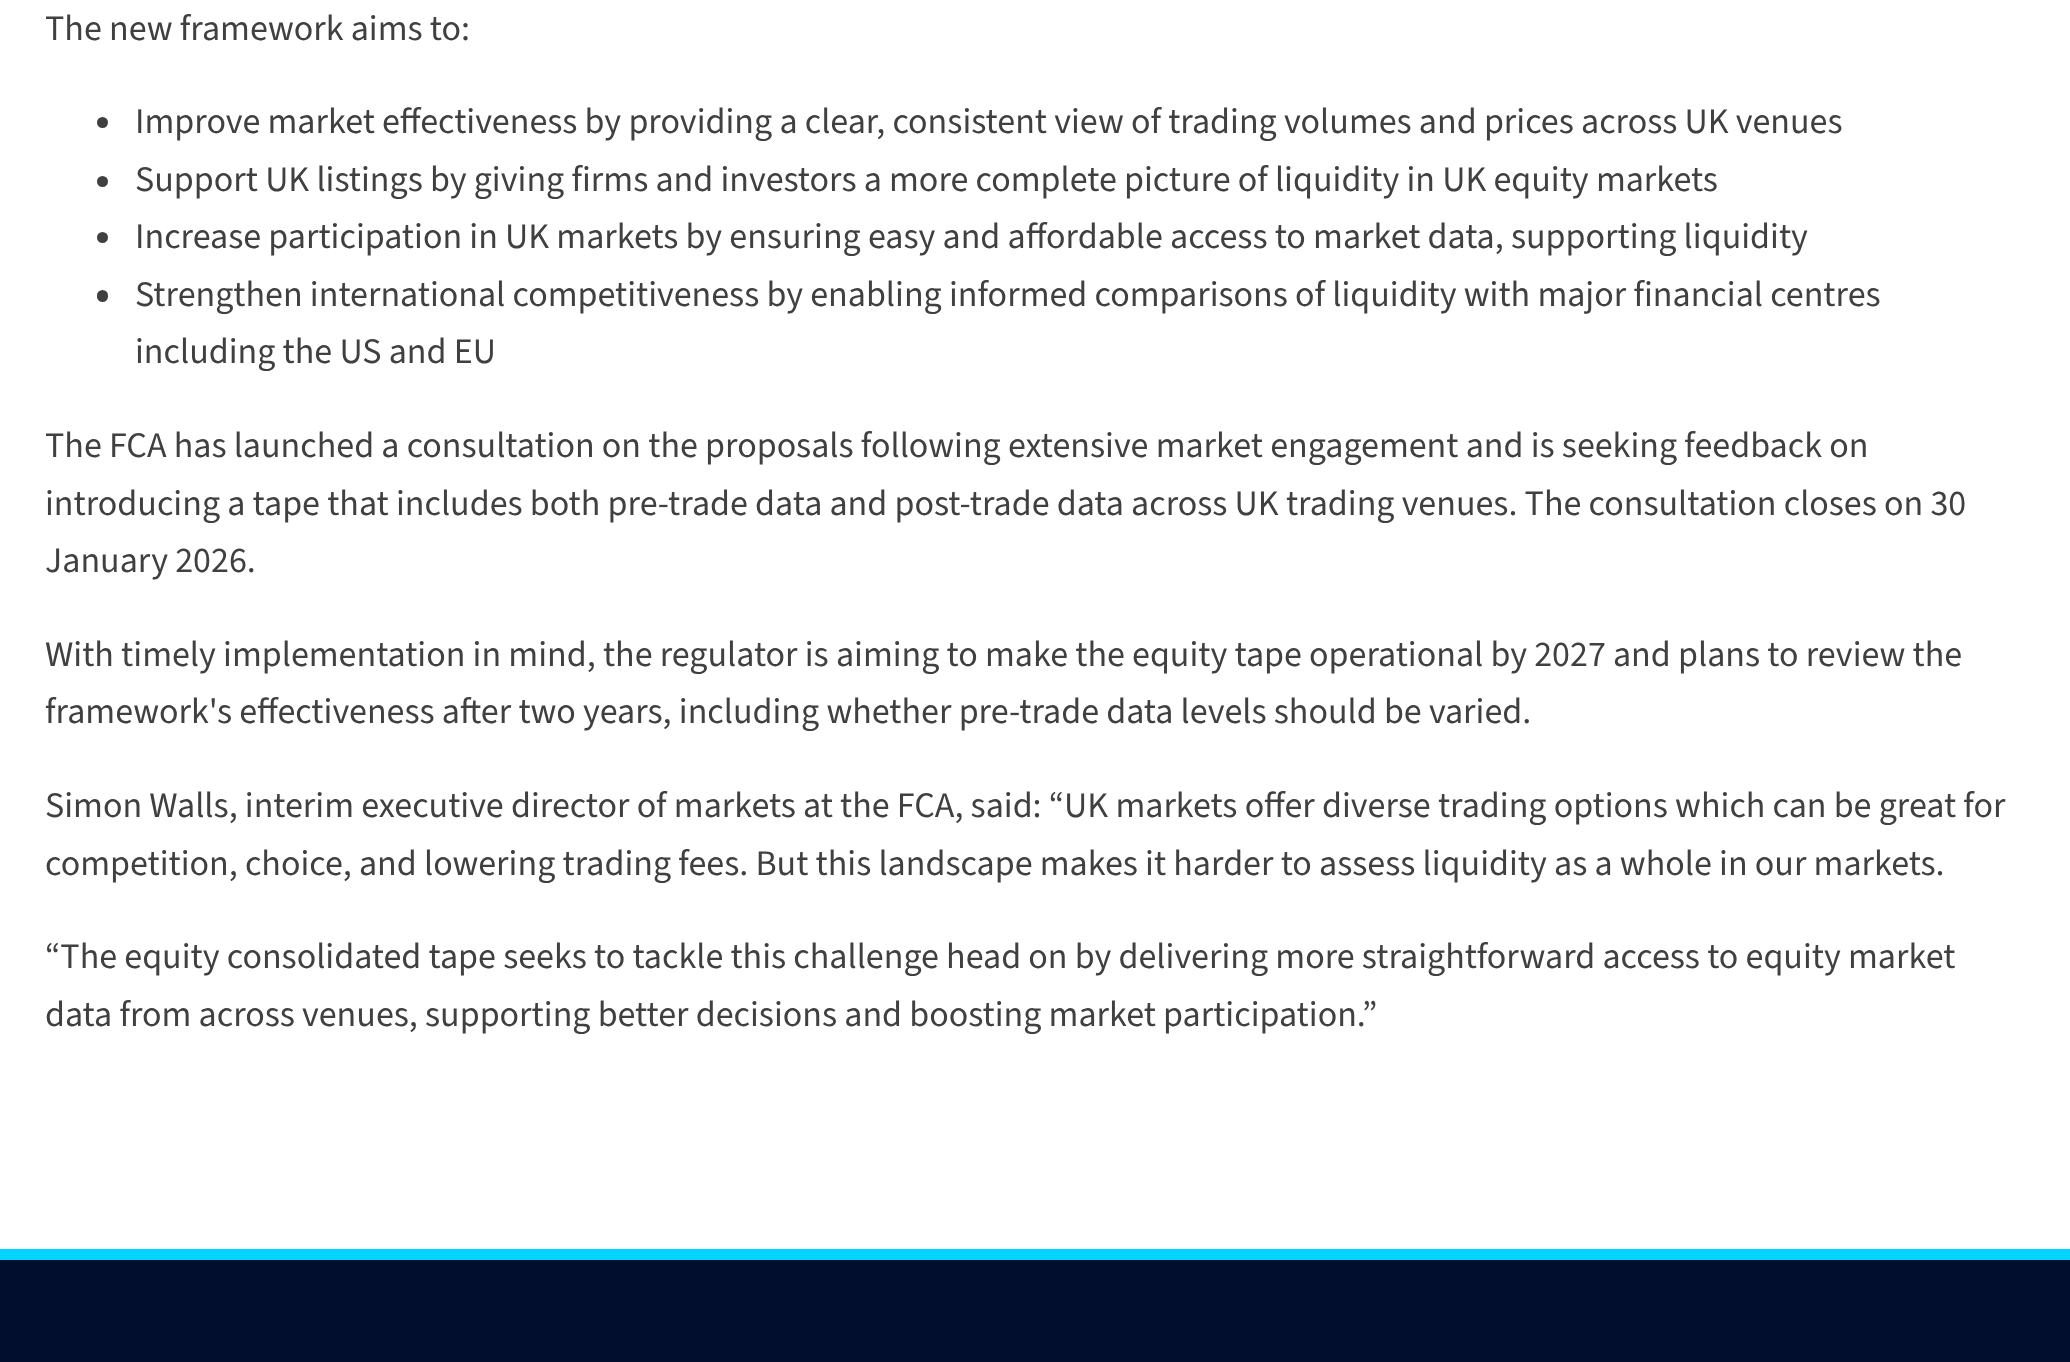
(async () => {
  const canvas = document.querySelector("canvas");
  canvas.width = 2070;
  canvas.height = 1362;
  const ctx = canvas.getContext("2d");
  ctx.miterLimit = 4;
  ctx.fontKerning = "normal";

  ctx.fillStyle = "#ffffff";
  ctx.fillRect(0, 0, 2070, 1362);
  ctx.fillStyle = "#404040";
  ctx.beginPath();
  ctx.arc(102.5, 122.5, 5.5, 0, Math.PI * 2);
  ctx.fill();
  ctx.beginPath();
  ctx.arc(102.5, 181.5, 5.5, 0, Math.PI * 2);
  ctx.fill();
  ctx.beginPath();
  ctx.arc(102.5, 237.5, 5.5, 0, Math.PI * 2);
  ctx.fill();
  ctx.beginPath();
  ctx.roundRect(97, 290, 11, 12, 5.5);
  ctx.fill();
  ctx.fillStyle = "#010e2e";
  ctx.fillRect(0, 1260, 2070, 102);
  ctx.fillStyle = "#01d4ff";
  ctx.fillRect(0, 1249, 2070, 11);
  ctx.font = "36px 'Source Sans 3'";
  ctx.fillStyle = "#404040";
  for (const [text, x, y] of [
    ["The new framework aims to:", 45, 40],
    ["Improve market effectiveness by providing a clear, consistent view of trading volumes and prices across UK venues", 135, 133],
    ["Support UK listings by giving firms and investors a more complete picture of liquidity in UK equity markets", 135, 191],
    ["Increase participation in UK markets by ensuring easy and affordable access to market data, supporting liquidity", 135, 248],
    ["Strengthen international competitiveness by enabling informed comparisons of liquidity with major financial centres", 135, 306],
    ["including the US and EU", 135, 363],
    ["The FCA has launched a consultation on the proposals following extensive market engagement and is seeking feedback on", 45, 457],
    ["introducing a tape that includes both pre-trade data and post-trade data across UK trading venues. The consultation closes on 30", 45, 515],
    ["January 2026.", 45, 572],
    ["With timely implementation in mind, the regulator is aiming to make the equity tape operational by 2027 and plans to review the", 45, 666],
    ["framework's effectiveness after two years, including whether pre-trade data levels should be varied.", 45, 723],
    ["Simon Walls, interim executive director of markets at the FCA, said: “UK markets offer diverse trading options which can be great for", 45, 817],
    ["competition, choice, and lowering trading fees. But this landscape makes it harder to assess liquidity as a whole in our markets.", 45, 875],
    ["“The equity consolidated tape seeks to tackle this challenge head on by delivering more straightforward access to equity market", 45, 968],
    ["data from across venues, supporting better decisions and boosting market participation.”", 45, 1026],
  ]) {
    ctx.fillText(text, x, y);
  }
})();
